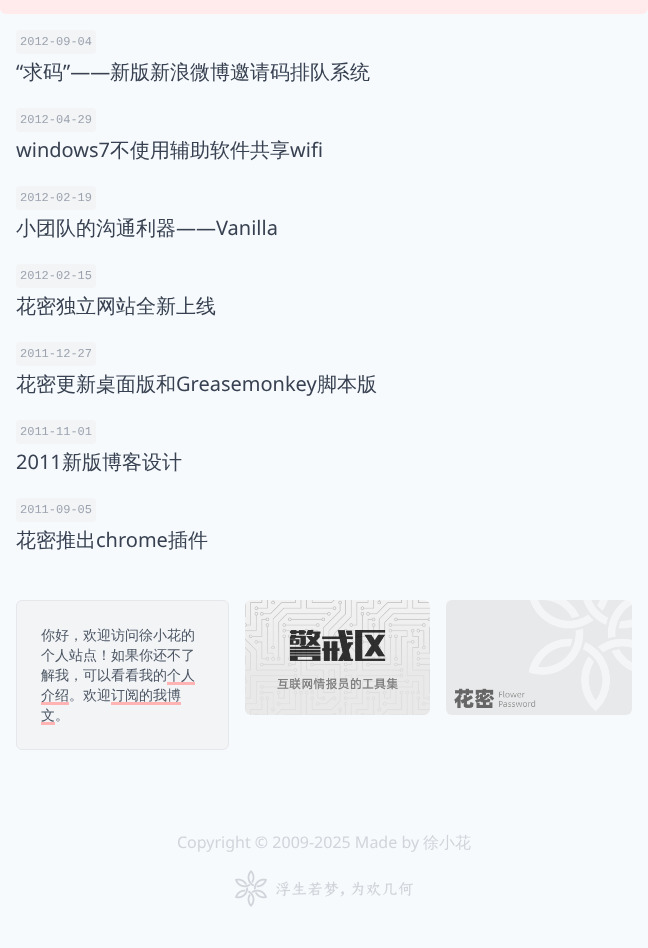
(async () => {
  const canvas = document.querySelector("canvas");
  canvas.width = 648;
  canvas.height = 948;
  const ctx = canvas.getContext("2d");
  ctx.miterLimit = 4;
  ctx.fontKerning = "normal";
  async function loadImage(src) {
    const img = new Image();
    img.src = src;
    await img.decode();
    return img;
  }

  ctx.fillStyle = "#f7fafc";
  ctx.fillRect(0, 0, 648, 948);
  ctx.fillStyle = "#ffebeb";
  ctx.beginPath();
  ctx.roundRect(0, -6, 648, 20, 6);
  ctx.fill();
  ctx.fillStyle = "#f3f4f6";
  ctx.beginPath();
  ctx.roundRect(16, 30, 80, 24, 4);
  ctx.fill();
  ctx.beginPath();
  ctx.roundRect(16, 108, 80, 24, 4);
  ctx.fill();
  ctx.beginPath();
  ctx.roundRect(16, 186, 80, 24, 4);
  ctx.fill();
  ctx.beginPath();
  ctx.roundRect(16, 264, 80, 24, 4);
  ctx.fill();
  ctx.beginPath();
  ctx.roundRect(16, 342, 80, 24, 4);
  ctx.fill();
  ctx.beginPath();
  ctx.roundRect(16, 420, 80, 24, 4);
  ctx.fill();
  ctx.beginPath();
  ctx.roundRect(16, 498, 80, 24, 4);
  ctx.fill();
  ctx.beginPath();
  ctx.roundRect(16.5, 600.5, 212, 149, 5.5);
  ctx.fill();
  ctx.strokeStyle = "#e5e7eb";
  ctx.stroke();
  for (const [x, y, w, h, color] of [
    [167, 682, 28, 3, "#ffb3b3"],
    [41, 702, 28, 3, "#ffb3b3"],
    [41, 722, 14, 3, "#ffb3b3"],
  ]) {
    ctx.fillStyle = color;
    ctx.fillRect(x, y, w, h);
  }
  ctx.drawImage(await loadImage("img/1.png"), 245, 600, 185, 115);
  ctx.drawImage(await loadImage("img/2.png"), 446, 600, 186, 115);
  ctx.drawImage(await loadImage("img/3.png"), 235, 870, 32, 37);
  ctx.font = "12px Liberation Mono";
  ctx.fillStyle = "#9ca3af";
  ctx.fillText("2012-09-04", 20, 45);
  ctx.font = "20px Noto Sans";
  ctx.fillStyle = "#374151";
  ctx.fillText("“", 16, 79);
  ctx.font = "500 20px WenQuanYi Zen Hei";
  ctx.fillText("求码", 23, 79);
  ctx.font = "20px Noto Sans";
  ctx.fillText("”——", 63, 79);
  ctx.font = "500 20px WenQuanYi Zen Hei";
  ctx.fillText("新版新浪微博邀请码排队系统", 110, 79);
  ctx.font = "12px Liberation Mono";
  ctx.fillStyle = "#9ca3af";
  ctx.fillText("2012-04-29", 20, 123);
  ctx.font = "20px Noto Sans";
  ctx.fillStyle = "#374151";
  ctx.fillText("windows7", 16, 157);
  ctx.font = "500 20px WenQuanYi Zen Hei";
  ctx.fillText("不使用辅助软件共享", 110, 157);
  ctx.font = "20px Noto Sans";
  ctx.fillText("wifi", 290, 157);
  ctx.font = "12px Liberation Mono";
  ctx.fillStyle = "#9ca3af";
  ctx.fillText("2012-02-19", 20, 201);
  ctx.font = "500 20px WenQuanYi Zen Hei";
  ctx.fillStyle = "#374151";
  ctx.fillText("小团队的沟通利器", 16, 235);
  ctx.font = "20px Noto Sans";
  ctx.fillText("——Vanilla", 176, 235);
  ctx.font = "12px Liberation Mono";
  ctx.fillStyle = "#9ca3af";
  ctx.fillText("2012-02-15", 20, 279);
  ctx.font = "500 20px WenQuanYi Zen Hei";
  ctx.fillStyle = "#374151";
  ctx.fillText("花密独立网站全新上线", 16, 313);
  ctx.font = "12px Liberation Mono";
  ctx.fillStyle = "#9ca3af";
  ctx.fillText("2011-12-27", 20, 357);
  ctx.font = "500 20px WenQuanYi Zen Hei";
  ctx.fillStyle = "#374151";
  ctx.fillText("花密更新桌面版和", 16, 391);
  ctx.font = "20px Noto Sans";
  ctx.fillText("Greasemonkey", 176, 391);
  ctx.font = "500 20px WenQuanYi Zen Hei";
  ctx.fillText("脚本版", 317, 391);
  ctx.font = "12px Liberation Mono";
  ctx.fillStyle = "#9ca3af";
  ctx.fillText("2011-11-01", 20, 435);
  ctx.font = "20px Noto Sans";
  ctx.fillStyle = "#374151";
  ctx.fillText("2011", 16, 469);
  ctx.font = "500 20px WenQuanYi Zen Hei";
  ctx.fillText("新版博客设计", 62, 469);
  ctx.font = "12px Liberation Mono";
  ctx.fillStyle = "#9ca3af";
  ctx.fillText("2011-09-05", 20, 513);
  ctx.font = "500 20px WenQuanYi Zen Hei";
  ctx.fillStyle = "#374151";
  ctx.fillText("花密推出", 16, 547);
  ctx.font = "20px Noto Sans";
  ctx.fillText("chrome", 96, 547);
  ctx.font = "500 20px WenQuanYi Zen Hei";
  ctx.fillText("插件", 168, 547);
  ctx.font = "500 14px WenQuanYi Zen Hei";
  ctx.fillStyle = "#4b5563";
  for (const [text, x, y] of [
    ["你好，欢迎访问徐小花的", 41, 640],
    ["个人站点！如果你还不了", 41, 660],
    ["解我，可以看看我的", 41, 680],
    ["个人", 167, 680],
    ["介绍。欢迎订阅的我博", 41, 700],
    ["文。", 41, 720],
  ]) {
    ctx.fillText(text, x, y);
  }
  ctx.fillStyle = "#ffb3b3";
  ctx.fillRect(111, 702, 70, 3);
  ctx.font = "16px Noto Sans";
  ctx.fillStyle = "#d1d5db";
  ctx.fillText("Copyright © 2009-2025 Made by", 177, 848);
  ctx.font = "500 16px WenQuanYi Zen Hei";
  ctx.fillText("徐小花", 423, 848);
  ctx.font = "16px 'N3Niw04'";
  ctx.fillText("浮生若梦，为欢几何", 275, 895);
})();
